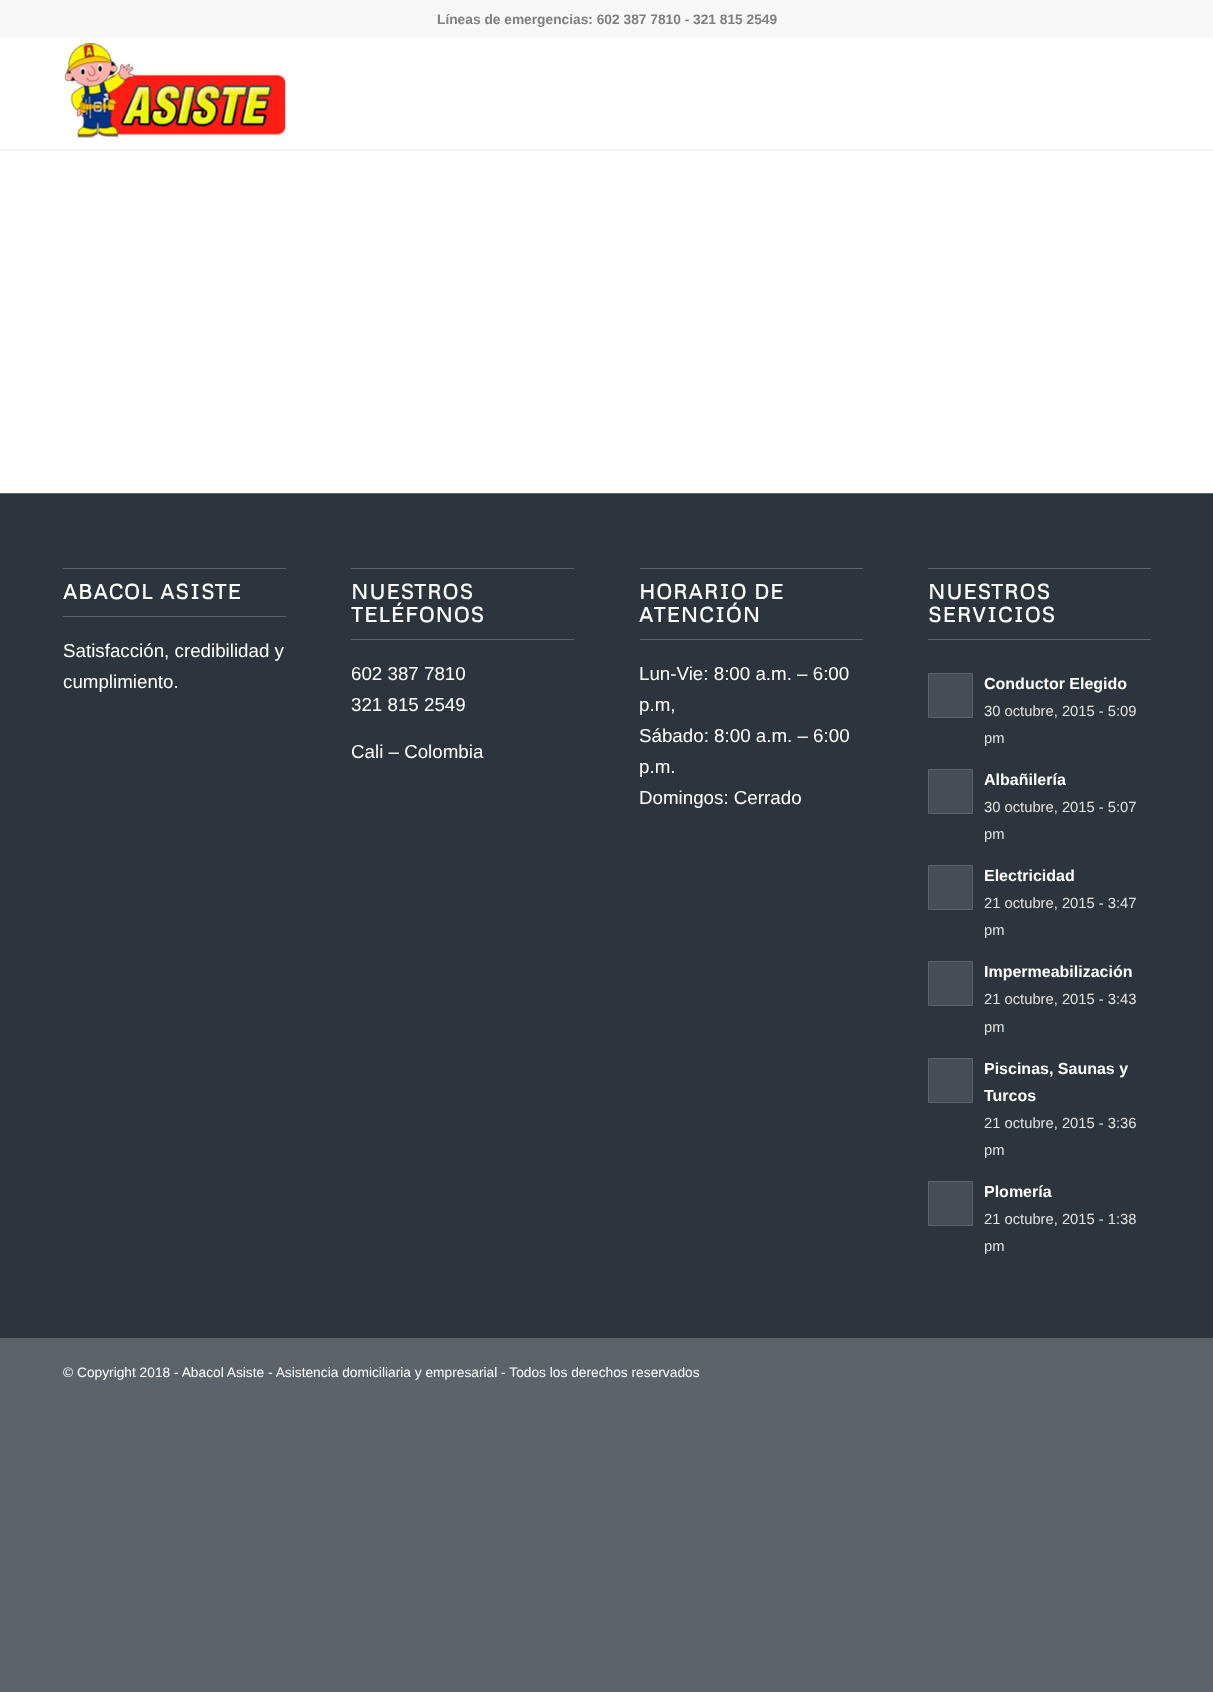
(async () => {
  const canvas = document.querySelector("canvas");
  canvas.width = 1213;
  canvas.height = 1692;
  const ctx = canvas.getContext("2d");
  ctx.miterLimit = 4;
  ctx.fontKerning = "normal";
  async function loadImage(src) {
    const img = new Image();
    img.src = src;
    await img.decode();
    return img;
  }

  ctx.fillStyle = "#5b646b";
  ctx.fillRect(0, 0, 1213, 1692);
  ctx.fillStyle = "#ffffff";
  ctx.fillRect(0, 149, 1213, 344);
  ctx.fillStyle = "rgba(0, 0, 0, 0.1)";
  ctx.filter = "blur(1px)";
  ctx.beginPath();
  ctx.rect(-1, -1, 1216, 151);
  ctx.fill();
  ctx.filter = "none";
  ctx.fillStyle = "#f8f8f8";
  ctx.fillRect(0, 0, 1213, 38);
  ctx.fillStyle = "#ffffff";
  ctx.fillRect(0, 38, 1213, 111);
  ctx.drawImage(await loadImage("img/1.png"), 64, 43, 222, 95);
  for (const [x, y, w, h, color] of [
    [0, 494, 1213, 844, "#2c353d"],
    [63, 568, 223, 1, "#5b646b"],
    [63, 616, 223, 1, "#5b646b"],
    [351, 568, 223, 1, "#5b646b"],
    [351, 639, 223, 1, "#5b646b"],
    [640, 568, 223, 1, "#5b646b"],
    [640, 639, 223, 1, "#5b646b"],
    [928, 568, 223, 1, "#5b646b"],
    [928, 639, 223, 1, "#5b646b"],
  ]) {
    ctx.fillStyle = color;
    ctx.fillRect(x, y, w, h);
  }
  ctx.fillStyle = "#454e57";
  ctx.beginPath();
  ctx.rect(928.5, 673.5, 44, 44);
  ctx.fill();
  ctx.strokeStyle = "#5b646b";
  ctx.stroke();
  ctx.beginPath();
  ctx.rect(928.5, 769.5, 44, 44);
  ctx.fill();
  ctx.stroke();
  ctx.beginPath();
  ctx.rect(928.5, 865.5, 44, 44);
  ctx.fill();
  ctx.stroke();
  ctx.beginPath();
  ctx.rect(928.5, 961.5, 44, 44);
  ctx.fill();
  ctx.stroke();
  ctx.beginPath();
  ctx.rect(928.5, 1058.5, 44, 44);
  ctx.fill();
  ctx.stroke();
  ctx.beginPath();
  ctx.rect(928.5, 1181.5, 44, 44);
  ctx.fill();
  ctx.stroke();
  ctx.font = "bold 13.75px Liberation Sans";
  ctx.fillStyle = "#808080";
  ctx.fillText("Líneas de emergencias: 602 387 7810 - 321 815 2549", 437, 24);
  ctx.letterSpacing = "1.25px";
  ctx.font = "bold 20.6px Metrophobic";
  ctx.fillStyle = "#ffffff";
  ctx.fillText("ABACOL ASISTE", 63, 599);
  ctx.letterSpacing = "0px";
  ctx.font = "18.75px Liberation Sans";
  ctx.fillText("Satisfacción, credibilidad y", 63, 657);
  ctx.fillText("cumplimiento.", 63, 688);
  ctx.letterSpacing = "1.25px";
  ctx.font = "bold 20.6px Metrophobic";
  ctx.fillText("NUESTROS", 351, 599);
  ctx.fillText("TELÉFONOS", 351, 622);
  ctx.letterSpacing = "0px";
  ctx.font = "18.75px Liberation Sans";
  for (const [text, x, y] of [
    ["602 387 7810", 351, 680],
    ["321 815 2549", 351, 711],
    ["Cali – Colombia", 351, 758],
  ]) {
    ctx.fillText(text, x, y);
  }
  ctx.letterSpacing = "1.25px";
  ctx.font = "bold 20.6px Metrophobic";
  ctx.fillText("HORARIO DE", 639, 599);
  ctx.fillText("ATENCIÓN", 639, 622);
  ctx.letterSpacing = "0px";
  ctx.font = "18.75px Liberation Sans";
  for (const [text, x, y] of [
    ["Lun-Vie: 8:00 a.m. – 6:00", 639, 680],
    ["p.m,", 639, 711],
    ["Sábado: 8:00 a.m. – 6:00", 639, 742],
    ["p.m.", 639, 773],
    ["Domingos: Cerrado", 639, 804],
  ]) {
    ctx.fillText(text, x, y);
  }
  ctx.letterSpacing = "1.25px";
  ctx.font = "bold 20.6px Metrophobic";
  ctx.fillText("NUESTROS", 928, 599);
  ctx.fillText("SERVICIOS", 928, 622);
  ctx.letterSpacing = "0px";
  ctx.font = "bold 16px Liberation Sans";
  ctx.fillText("Conductor Elegido", 984, 689);
  ctx.font = "14.75px Liberation Sans";
  ctx.fillStyle = "#e1e1e1";
  ctx.fillText("30 octubre, 2015 - 5:09", 984, 716);
  ctx.fillText("pm", 984, 743);
  ctx.font = "bold 16px Liberation Sans";
  ctx.fillStyle = "#ffffff";
  ctx.fillText("Albañilería", 984, 785);
  ctx.font = "14.75px Liberation Sans";
  ctx.fillStyle = "#e1e1e1";
  ctx.fillText("30 octubre, 2015 - 5:07", 984, 812);
  ctx.fillText("pm", 984, 839);
  ctx.font = "bold 16px Liberation Sans";
  ctx.fillStyle = "#ffffff";
  ctx.fillText("Electricidad", 984, 881);
  ctx.font = "14.75px Liberation Sans";
  ctx.fillStyle = "#e1e1e1";
  ctx.fillText("21 octubre, 2015 - 3:47", 984, 908);
  ctx.fillText("pm", 984, 935);
  ctx.font = "bold 16px Liberation Sans";
  ctx.fillStyle = "#ffffff";
  ctx.fillText("Impermeabilización", 984, 977);
  ctx.font = "14.75px Liberation Sans";
  ctx.fillStyle = "#e1e1e1";
  ctx.fillText("21 octubre, 2015 - 3:43", 984, 1004);
  ctx.fillText("pm", 984, 1032);
  ctx.font = "bold 16px Liberation Sans";
  ctx.fillStyle = "#ffffff";
  ctx.fillText("Piscinas, Saunas y", 984, 1074);
  ctx.fillText("Turcos", 984, 1101);
  ctx.font = "14.75px Liberation Sans";
  ctx.fillStyle = "#e1e1e1";
  ctx.fillText("21 octubre, 2015 - 3:36", 984, 1128);
  ctx.fillText("pm", 984, 1155);
  ctx.font = "bold 16px Liberation Sans";
  ctx.fillStyle = "#ffffff";
  ctx.fillText("Plomería", 984, 1197);
  ctx.font = "14.75px Liberation Sans";
  ctx.fillStyle = "#e1e1e1";
  ctx.fillText("21 octubre, 2015 - 1:38", 984, 1224);
  ctx.fillText("pm", 984, 1251);
  ctx.font = "13.75px Liberation Sans";
  ctx.fillStyle = "#ffffff";
  ctx.fillText("© Copyright 2018 - Abacol Asiste - Asistencia domiciliaria y empresarial - Todos los derechos reservados", 63, 1377);
})();
